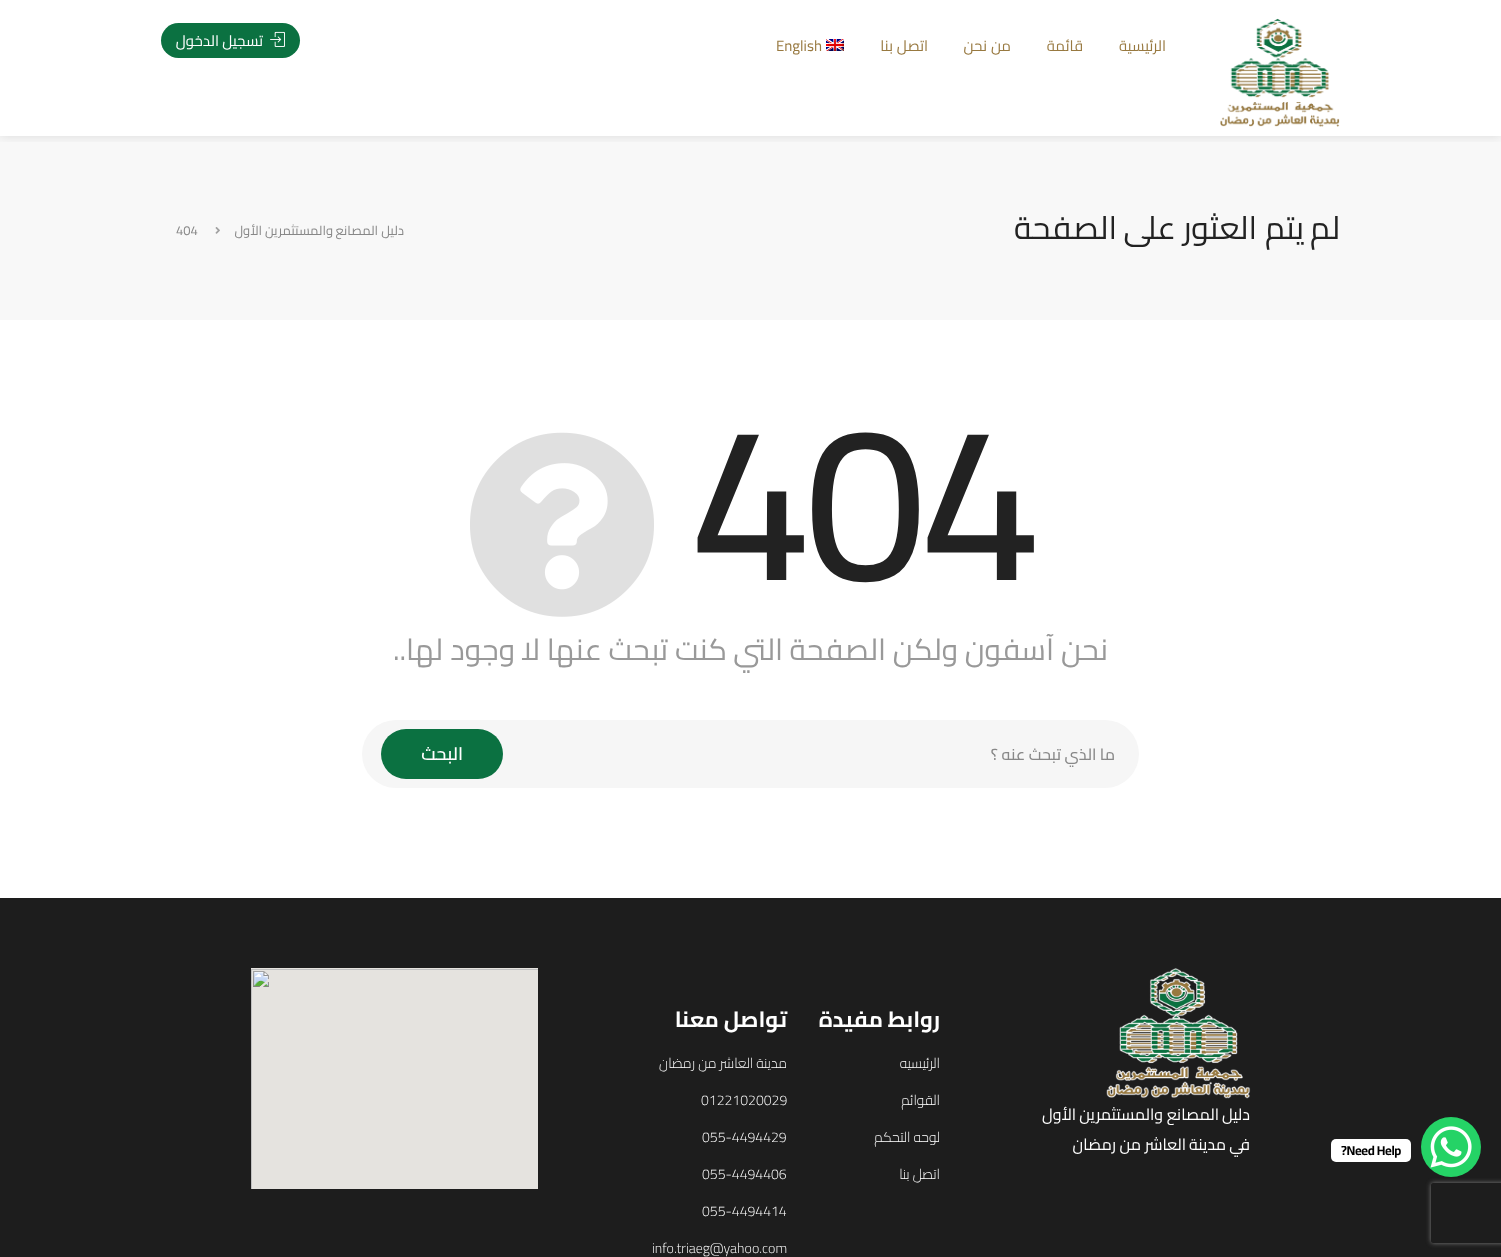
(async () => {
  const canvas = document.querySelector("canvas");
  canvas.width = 1501;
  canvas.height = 1257;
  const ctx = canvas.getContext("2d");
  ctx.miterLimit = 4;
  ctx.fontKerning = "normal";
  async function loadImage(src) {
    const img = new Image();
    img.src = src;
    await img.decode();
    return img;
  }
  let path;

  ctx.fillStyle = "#ffffff";
  ctx.fillRect(0, 0, 1501, 1257);
  ctx.fillStyle = "#1d1d1d";
  ctx.fillRect(0, 898, 1501, 359);
  ctx.save();
  path = new Path2D("M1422 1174H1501V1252H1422ZM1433 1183H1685C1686 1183 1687 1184 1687 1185V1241C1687 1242 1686 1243 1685 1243H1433C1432 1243 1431 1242 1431 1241V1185C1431 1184 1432 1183 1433 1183Z");
  ctx.clip(path, "evenodd");
  ctx.fillStyle = "#808080";
  ctx.filter = "blur(2.5px)";
  ctx.beginPath();
  ctx.roundRect(1431, 1183, 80, 60, 2);
  ctx.fill();
  ctx.filter = "none";
  ctx.restore();
  ctx.fillStyle = "#f8f8f8";
  ctx.fillRect(0, 136, 1501, 184);
  ctx.save();
  ctx.beginPath();
  ctx.rect(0, 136, 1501, 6);
  ctx.clip();
  ctx.fillStyle = "rgba(0, 0, 0, 0.12)";
  ctx.filter = "blur(6px)";
  ctx.beginPath();
  ctx.rect(0, 0, 1501, 136);
  ctx.fill();
  ctx.filter = "none";
  ctx.restore();
  ctx.drawImage(await loadImage("img/1.png"), 1220, 18, 120, 109);
  ctx.drawImage(await loadImage("img/2.png"), 826, 39, 18, 12);
  ctx.fillStyle = "#0b7141";
  ctx.beginPath();
  ctx.roundRect(161, 23, 139, 35, 17.5);
  ctx.fill();
  ctx.drawImage(await loadImage("img/3.png"), 270, 31, 15, 16);
  ctx.drawImage(await loadImage("img/4.png"), 215, 227, 5, 7);
  ctx.drawImage(await loadImage("img/5.png"), 470, 432, 184, 185);
  ctx.fillStyle = "#f6f6f6";
  ctx.beginPath();
  ctx.roundRect(362, 720, 777, 68, 34);
  ctx.fill();
  ctx.fillStyle = "#0b7141";
  ctx.beginPath();
  ctx.roundRect(381, 729, 122, 50, 25);
  ctx.fill();
  ctx.fillStyle = "#25d366";
  ctx.beginPath();
  ctx.arc(1451, 1147, 30, 0, Math.PI * 2);
  ctx.fill();
  ctx.drawImage(await loadImage("img/6.png"), 1430, 1126, 42, 42);
  ctx.fillStyle = "#ffffff";
  ctx.beginPath();
  ctx.roundRect(1331, 1139, 80, 23, 5);
  ctx.fill();
  ctx.drawImage(await loadImage("img/7.png"), 1106, 968, 145, 131);
  ctx.drawImage(await loadImage("img/8.png"), 251, 968, 287, 221);
  ctx.direction = "rtl";
  ctx.font = "15px Cairo";
  ctx.fillStyle = "#987940";
  for (const [text, x, y] of [
    ["الرئيسية", 1166, 51],
    ["قائمة", 1083, 51],
    ["من", 1011, 51],
    ["نحن", 987, 51],
    ["اتصل", 928, 51],
    ["بنا", 893, 51],
  ]) {
    ctx.fillText(text, x, y);
  }
  ctx.direction = "ltr";
  ctx.font = "15px 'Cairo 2'";
  ctx.fillText("English", 776, 51);
  ctx.direction = "rtl";
  ctx.font = "15px Cairo";
  ctx.fillStyle = "#ffffff";
  ctx.fillText("تسجيل", 263, 46);
  ctx.fillText("الدخول", 219, 46);
  ctx.font = "32px Cairo";
  ctx.fillStyle = "#222222";
  for (const [text, x, y] of [
    ["لم", 1340, 239],
    ["يتم", 1304, 239],
    ["العثور", 1257, 239],
    ["على", 1176, 239],
    ["الصفحة", 1117, 239],
  ]) {
    ctx.fillText(text, x, y);
  }
  ctx.font = "13px Cairo";
  ctx.fillStyle = "#888888";
  for (const [text, x, y] of [
    ["دليل", 404, 235],
    ["المصانع", 378, 235],
    ["والمستثمرين", 333, 235],
    ["الأول", 262, 235],
  ]) {
    ctx.fillText(text, x, y);
  }
  ctx.direction = "ltr";
  ctx.font = "13px 'Cairo 2'";
  ctx.fillText("404", 176, 235);
  ctx.letterSpacing = "-8px";
  ctx.font = "500 220px Cairo";
  ctx.fillStyle = "#222222";
  ctx.fillText("404", 689, 580);
  ctx.letterSpacing = "0px";
  ctx.direction = "rtl";
  ctx.font = "30px Cairo";
  ctx.fillStyle = "#999999";
  for (const [text, x, y] of [
    ["نحن", 1108, 660],
    ["آسفون", 1054, 660],
    ["ولكن", 958, 660],
    ["الصفحة", 886, 660],
    ["التي", 783, 660],
    ["كنت", 727, 660],
    ["تبحث", 668, 660],
    ["عنها", 602, 660],
    ["لا", 540, 660],
    ["وجود", 515, 660],
    ["لها", 443, 660],
  ]) {
    ctx.fillText(text, x, y);
  }
  ctx.font = "30px 'Cairo 2'";
  ctx.fillText("..", 406, 660);
  ctx.font = "500 16px Cairo";
  ctx.fillStyle = "#888888";
  ctx.fillText("ما الذي تبحث عنه ؟", 1115, 760);
  ctx.font = "600 18px Cairo";
  ctx.fillStyle = "#ffffff";
  ctx.fillText("البحث", 463, 760);
  ctx.letterSpacing = "-0.4px";
  ctx.direction = "ltr";
  ctx.font = "bold 13px Cairo";
  ctx.fillStyle = "#000000";
  ctx.fillText("?Need Help", 1341, 1155);
  ctx.letterSpacing = "0px";
  ctx.direction = "rtl";
  ctx.font = "16px Cairo";
  ctx.fillStyle = "#ffffff";
  for (const [text, x, y] of [
    ["دليل", 1250, 1120],
    ["المصانع", 1219, 1120],
    ["والمستثمرين", 1163, 1120],
    ["الأول", 1076, 1120],
    ["في", 1250, 1150],
    ["مدينة", 1226, 1150],
    ["العاشر", 1186, 1150],
    ["من", 1141, 1150],
    ["رمضان", 1116, 1150],
  ]) {
    ctx.fillText(text, x, y);
  }
  ctx.font = "bold 22px Cairo";
  ctx.fillText("روابط مفيدة", 940, 1027);
  ctx.font = "300 14px Cairo";
  for (const [text, x, y] of [
    ["الرئيسيه", 940, 1068],
    ["القوائم", 940, 1105],
    ["لوحه التحكم", 940, 1142],
    ["اتصل بنا", 940, 1179],
  ]) {
    ctx.fillText(text, x, y);
  }
  ctx.font = "bold 22px Cairo";
  ctx.fillText("تواصل معنا", 787, 1027);
  ctx.font = "300 14px Cairo";
  ctx.fillText("مدينة العاشر من رمضان", 787, 1068);
  ctx.direction = "ltr";
  for (const [text, x, y] of [
    ["01221020029", 701, 1105],
    ["055-4494429", 702, 1142],
    ["055-4494406", 702, 1179],
    ["055-4494414", 702, 1216],
    ["info.triaeg@yahoo.com", 652, 1253],
  ]) {
    ctx.fillText(text, x, y);
  }
})();
